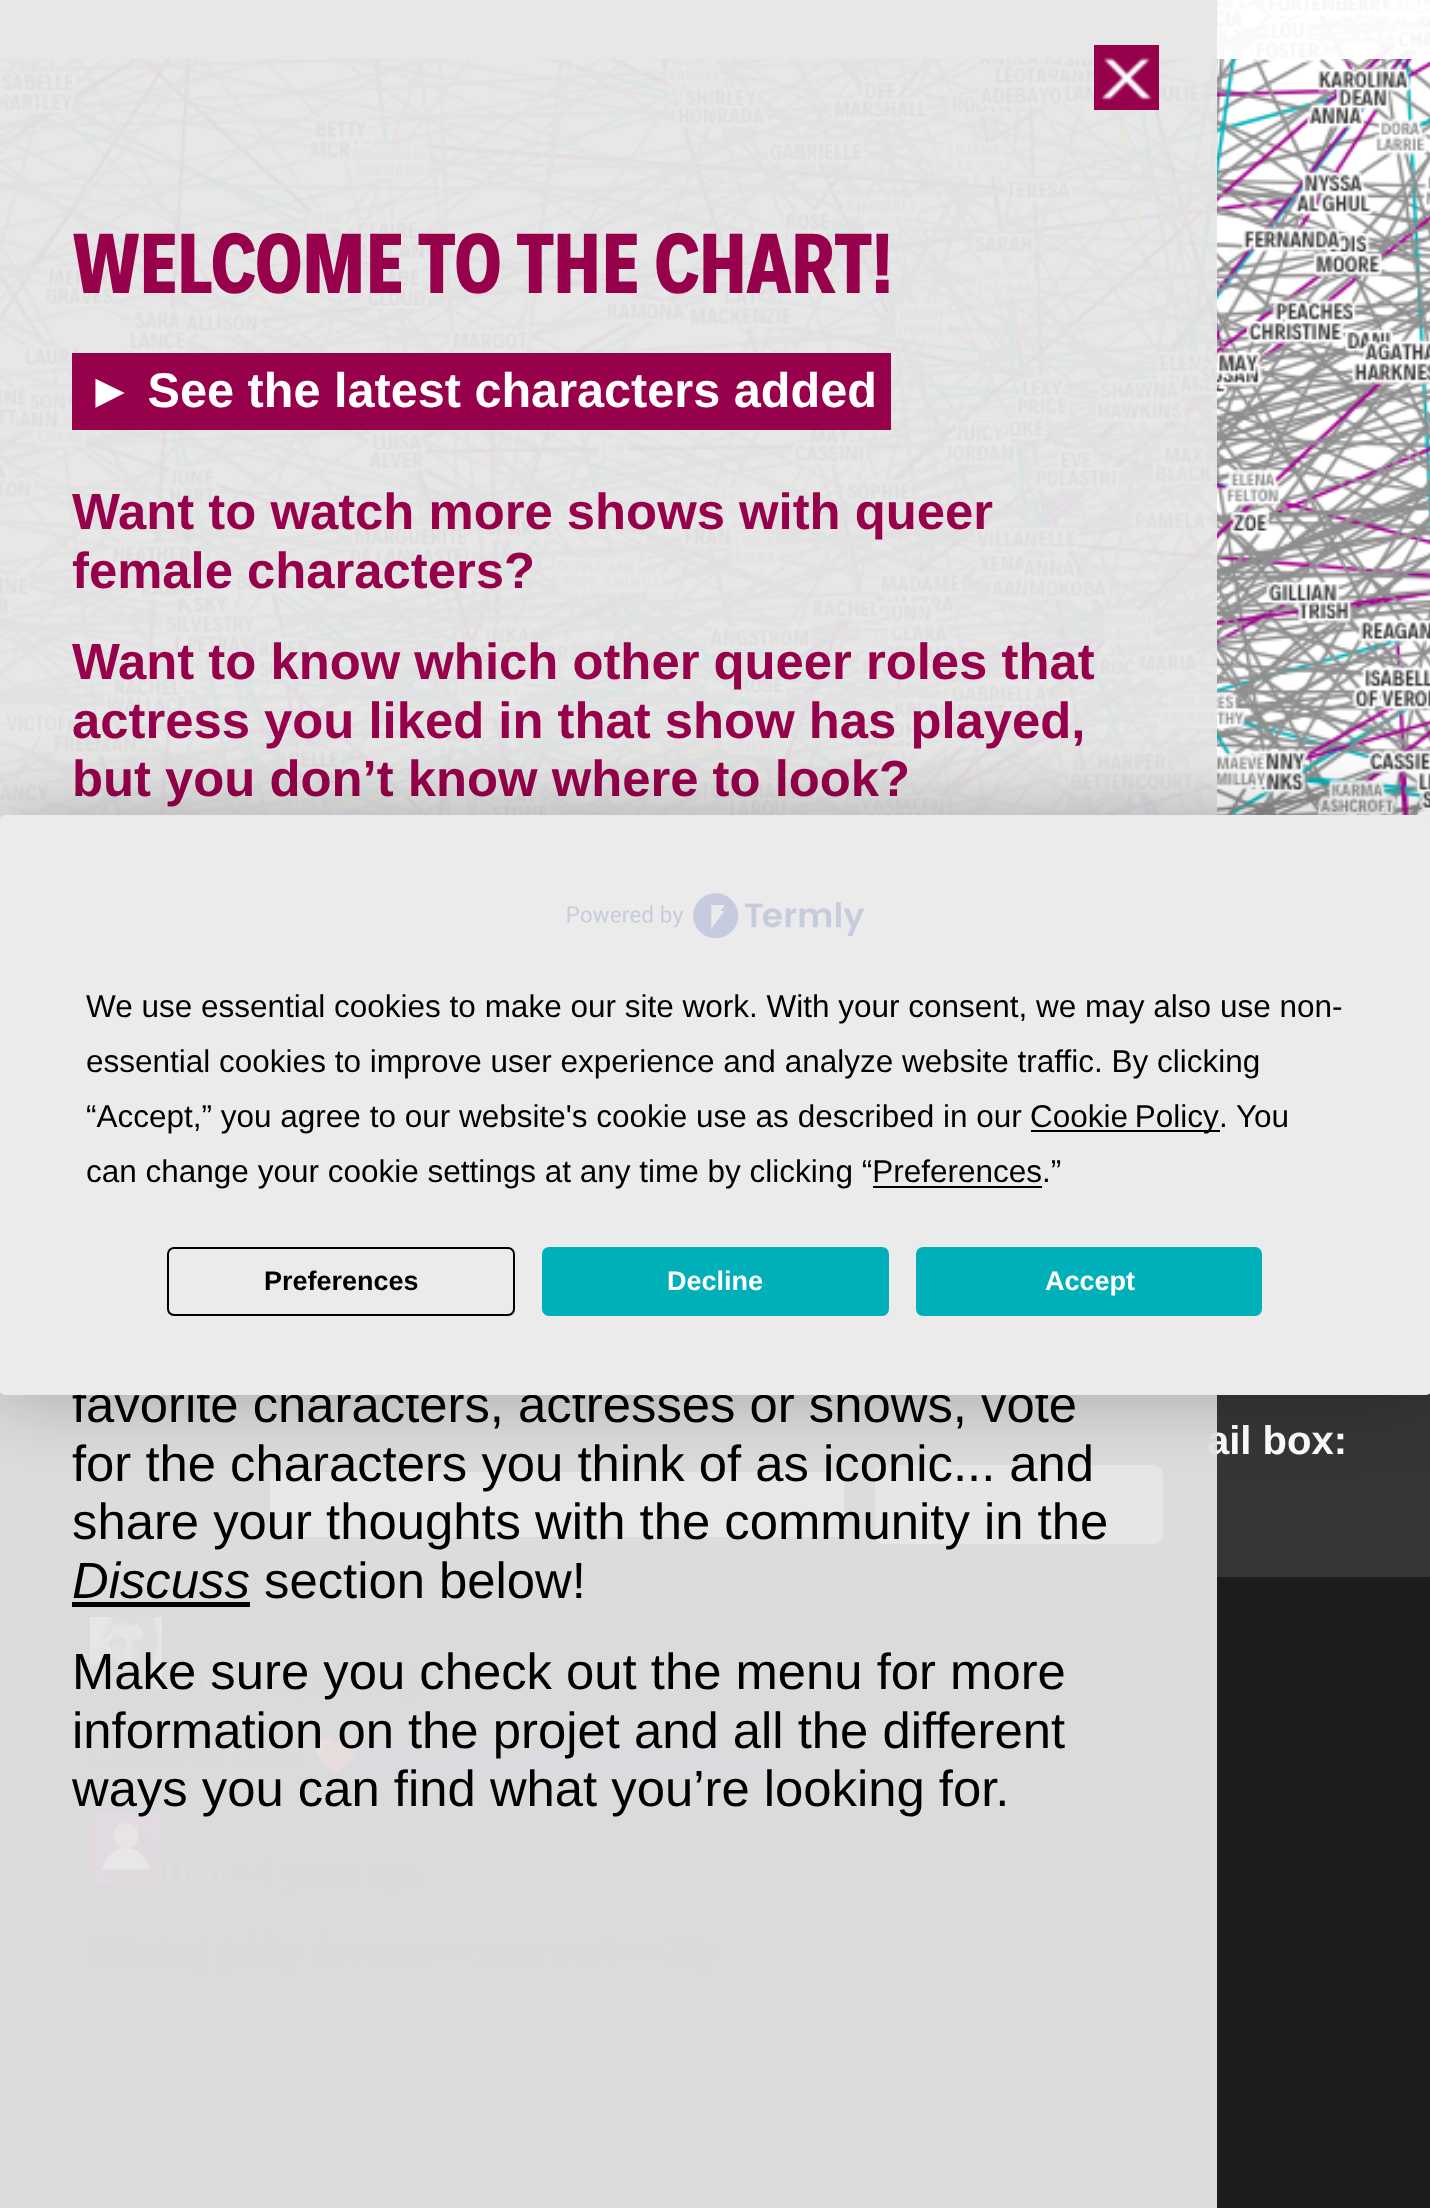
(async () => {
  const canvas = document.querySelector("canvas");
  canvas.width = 1430;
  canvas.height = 2208;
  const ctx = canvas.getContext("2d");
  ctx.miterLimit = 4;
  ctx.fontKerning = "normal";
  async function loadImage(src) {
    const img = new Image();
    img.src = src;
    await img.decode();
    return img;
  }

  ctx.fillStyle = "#ffffff";
  ctx.fillRect(0, 0, 1430, 2208);
  ctx.drawImage(await loadImage("img/1.png"), 0, 0, 1430, 817);
  for (const [x, y, w, h, color] of [
    [0, 0, 1430, 59, "rgba(255, 255, 255, 0.95)"],
    [0, 1392, 1430, 185, "#363636"],
    [270, 1472, 574, 65, "#ffffff"],
  ]) {
    ctx.fillStyle = color;
    ctx.fillRect(x, y, w, h);
  }
  ctx.fillStyle = "#e1e1e1";
  ctx.beginPath();
  ctx.roundRect(875, 1465, 288, 79, 9);
  ctx.fill();
  ctx.fillStyle = "#1c1c1c";
  ctx.fillRect(0, 1577, 1430, 631);
  ctx.drawImage(await loadImage("img/3.png"), 90, 1617, 685, 352);
  ctx.font = "bold 40px Liberation Sans";
  ctx.fillStyle = "#ffffff";
  ctx.fillText("ail box:", 1207, 1454);
  ctx.fillStyle = "rgba(230, 230, 230, 0.95)";
  ctx.fillRect(0, 0, 1217, 2208);
  ctx.fillStyle = "#97004b";
  ctx.fillRect(1094, 45, 65, 65);
  ctx.drawImage(await loadImage("img/2.png"), 1100, 57, 53, 44);
  ctx.font = "50.8px Liberation Sans";
  ctx.fillStyle = "#000000";
  for (const [text, x, y] of [
    ["ways you can find what you’re looking for.", 72, 1806],
    ["information on the projet and all the different", 72, 1748],
    ["Make sure you check out the menu for more", 72, 1689],
    ["section below!", 264, 1598],
  ]) {
    ctx.fillText(text, x, y);
  }
  ctx.font = "italic 50.8px Liberation Sans";
  ctx.fillText("Discuss", 72, 1598);
  ctx.fillRect(72, 1602, 178, 5);
  ctx.font = "50.8px Liberation Sans";
  for (const [text, x, y] of [
    ["share your thoughts with the community in the", 72, 1539],
    ["for the characters you think of as iconic... and", 72, 1481],
    ["favorite characters, actresses or shows, vote", 72, 1422],
  ]) {
    ctx.fillText(text, x, y);
  }
  ctx.font = "bold 50.8px Liberation Sans";
  ctx.fillStyle = "#97004b";
  for (const [text, x, y] of [
    ["but you don’t know where to look?", 72, 796],
    ["actress you liked in that show has played,", 72, 738],
    ["Want to know which other queer roles that", 72, 679],
    ["female characters?", 72, 588],
    ["Want to watch more shows with queer", 72, 529],
  ]) {
    ctx.fillText(text, x, y);
  }
  ctx.fillRect(72, 353, 819, 77);
  ctx.font = "bold 48.6px Liberation Sans";
  ctx.fillStyle = "#ffffff";
  ctx.fillText("► See the latest characters added", 86, 407);
  ctx.font = "bold 72.9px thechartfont";
  ctx.fillStyle = "#97004b";
  ctx.fillText("WELCOME TO THE CHART!", 72, 293);
  ctx.fillStyle = "rgba(0, 0, 0, 0.25)";
  ctx.filter = "blur(39.5px)";
  ctx.beginPath();
  ctx.roundRect(-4, 815, 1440, 580, 11);
  ctx.fill();
  ctx.filter = "none";
  ctx.fillStyle = "#ebebeb";
  ctx.beginPath();
  ctx.roundRect(-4, 815, 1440, 580, 11);
  ctx.fill();
  ctx.drawImage(await loadImage("img/4.png"), 567, 893, 297, 45);
  ctx.font = "31.5px Liberation Sans";
  ctx.fillStyle = "#000000";
  for (const [text, x, y] of [
    ["We use essential cookies to make our site work. With your consent, we may also use non-", 86, 1017],
    ["essential cookies to improve user experience and analyze website traffic. By clicking", 86, 1072],
    ["“Accept,” you agree to our website's cookie use as described in our", 86, 1127],
  ]) {
    ctx.fillText(text, x, y);
  }
  ctx.fillRect(1031, 1130, 189, 2);
  ctx.wordSpacing = "-2px";
  ctx.fillText("Cookie Policy", 1030, 1127);
  ctx.wordSpacing = "0px";
  ctx.fillText(". You", 1219, 1127);
  ctx.fillText("can change your cookie settings at any time by clicking “Preferences.”", 86, 1182);
  ctx.fillRect(873, 1186, 169, 2);
  ctx.beginPath();
  ctx.roundRect(168, 1248, 346, 67, 6);
  ctx.strokeStyle = "#000000";
  ctx.lineWidth = 2;
  ctx.stroke();
  ctx.font = "bold 27px Liberation Sans";
  ctx.fillText("Preferences", 264, 1290);
  ctx.fillStyle = "#00b0b9";
  ctx.beginPath();
  ctx.roundRect(543, 1248, 345, 67, 6);
  ctx.fill();
  ctx.strokeStyle = "#00b0b9";
  ctx.stroke();
  ctx.fillStyle = "#ffffff";
  ctx.fillText("Decline", 667, 1290);
  ctx.fillStyle = "#00b0b9";
  ctx.beginPath();
  ctx.roundRect(917, 1248, 344, 67, 6);
  ctx.fill();
  ctx.stroke();
  ctx.fillStyle = "#ffffff";
  ctx.fillText("Accept", 1045, 1290);
})();
